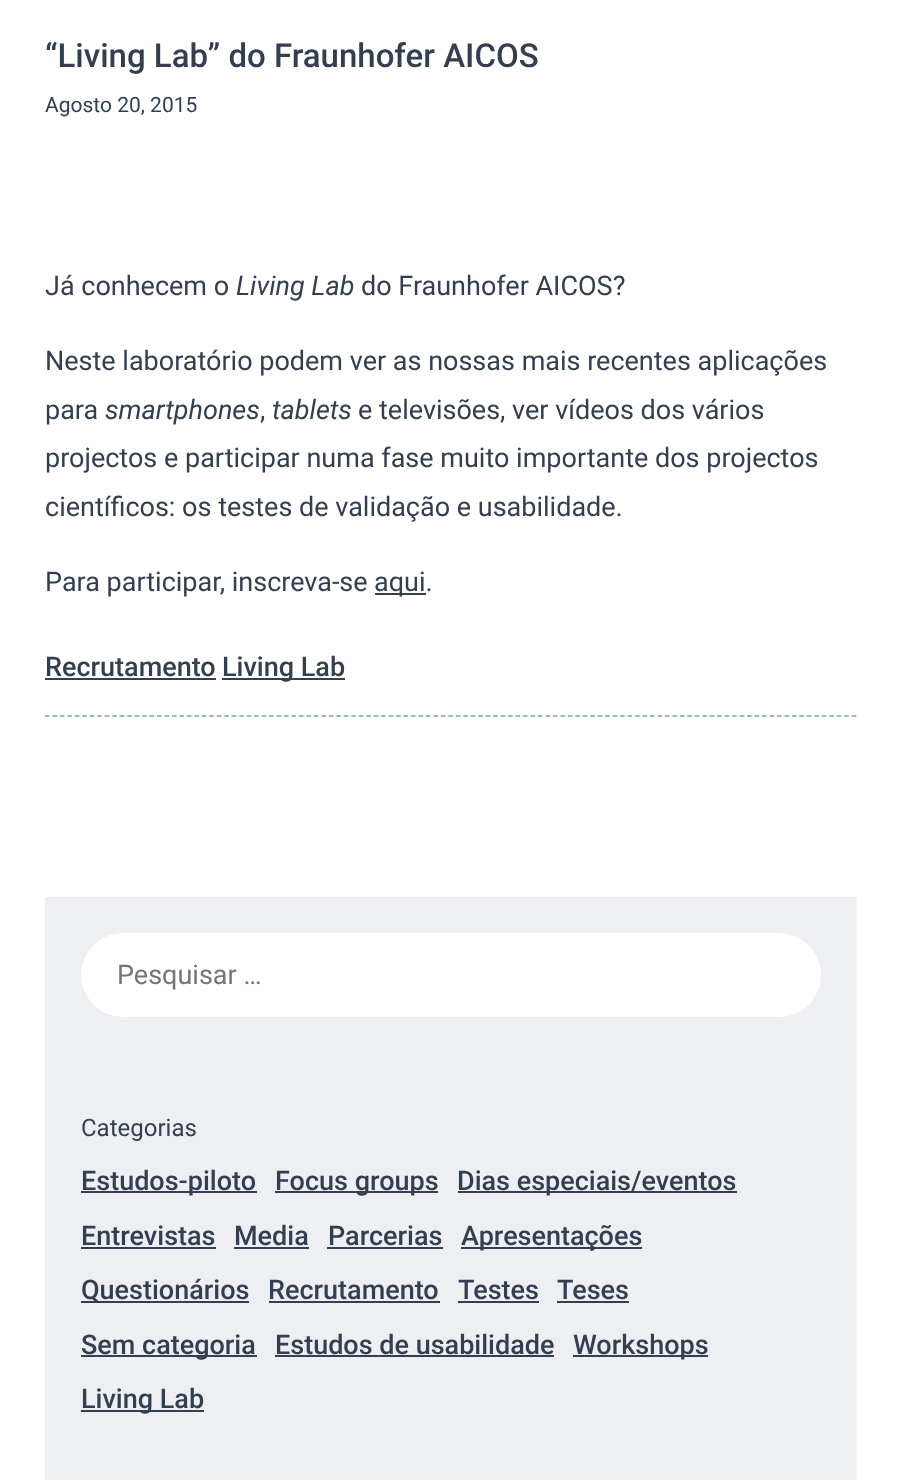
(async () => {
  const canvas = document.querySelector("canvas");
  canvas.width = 901;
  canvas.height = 1480;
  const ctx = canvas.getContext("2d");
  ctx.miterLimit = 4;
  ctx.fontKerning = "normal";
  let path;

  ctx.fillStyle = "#ffffff";
  ctx.fillRect(0, 0, 901, 1480);
  path = new Path2D("M45 716H856.5");
  ctx.strokeStyle = "#72b080";
  ctx.lineWidth = 1.5;
  ctx.setLineDash([4.5, 2.97]);
  ctx.stroke(path);
  for (const [x, y, w, h, color] of [
    [375, 593, 51, 2, "#333e50"],
    [45, 678, 171, 2, "#333e50"],
    [222, 678, 123, 2, "#333e50"],
    [45, 897, 812, 583, "#eeeff3"],
  ]) {
    ctx.fillStyle = color;
    ctx.fillRect(x, y, w, h);
  }
  ctx.fillStyle = "#ffffff";
  ctx.beginPath();
  ctx.roundRect(81, 933, 740, 84, 42);
  ctx.fill();
  for (const [x, y, w, h, color] of [
    [81, 1191, 176, 2, "#333e50"],
    [275, 1191, 163, 2, "#333e50"],
    [458, 1191, 279, 2, "#333e50"],
    [81, 1247, 135, 2, "#333e50"],
    [234, 1247, 75, 2, "#333e50"],
    [327, 1247, 116, 2, "#333e50"],
    [461, 1247, 181, 2, "#333e50"],
    [81, 1301, 168, 2, "#333e50"],
    [269, 1301, 171, 2, "#333e50"],
    [458, 1301, 81, 2, "#333e50"],
    [557, 1301, 72, 2, "#333e50"],
    [81, 1355, 176, 2, "#333e50"],
    [275, 1355, 279, 2, "#333e50"],
    [573, 1355, 135, 2, "#333e50"],
    [81, 1410, 123, 2, "#333e50"],
  ]) {
    ctx.fillStyle = color;
    ctx.fillRect(x, y, w, h);
  }
  ctx.font = "500 33px Roboto";
  ctx.fillText("“Living Lab” do Fraunhofer AICOS", 45, 67);
  ctx.font = "21px Roboto";
  ctx.fillText("Agosto 20, 2015", 45, 112);
  ctx.font = "27px Roboto";
  ctx.fillText("Já conhecem o", 45, 295);
  ctx.font = "italic 27px Roboto";
  ctx.fillText("Living Lab", 236, 295);
  ctx.font = "27px Roboto";
  for (const [text, x, y] of [
    ["do Fraunhofer AICOS?", 361, 295],
    ["Neste laboratório podem ver as nossas mais recentes aplicações", 45, 370],
    ["para", 45, 419],
  ]) {
    ctx.fillText(text, x, y);
  }
  ctx.font = "italic 27px Roboto";
  ctx.fillText("smartphones", 105, 419);
  ctx.font = "27px Roboto";
  ctx.fillText(",", 260, 419);
  ctx.font = "italic 27px Roboto";
  ctx.fillText("tablets", 272, 419);
  ctx.font = "27px Roboto";
  for (const [text, x, y] of [
    ["e televisões, ver vídeos dos vários", 358, 419],
    ["projectos e participar numa fase muito importante dos projectos", 45, 467],
    ["científicos: os testes de validação e usabilidade.", 45, 516],
    ["Para participar, inscreva-se", 45, 591],
    ["aqui.", 374, 591],
  ]) {
    ctx.fillText(text, x, y);
  }
  ctx.font = "500 27px Roboto";
  ctx.fillText("Recrutamento", 45, 676);
  ctx.fillText("Living Lab", 222, 676);
  ctx.font = "27px Roboto";
  ctx.fillStyle = "#757575";
  ctx.fillText("Pesquisar …", 117, 984);
  ctx.font = "24px Roboto";
  ctx.fillStyle = "#333e50";
  ctx.fillText("Categorias", 81, 1136);
  ctx.font = "500 27px Roboto";
  for (const [text, x, y] of [
    ["Estudos-piloto", 81, 1190],
    ["Focus groups", 275, 1190],
    ["Dias especiais/eventos", 457, 1190],
    ["Entrevistas", 81, 1245],
    ["Media", 234, 1245],
    ["Parcerias", 328, 1245],
    ["Apresentações", 461, 1245],
    ["Questionários", 81, 1299],
    ["Recrutamento", 268, 1299],
    ["Testes", 458, 1299],
    ["Teses", 557, 1299],
    ["Sem categoria", 81, 1354],
    ["Estudos de usabilidade", 275, 1354],
    ["Workshops", 573, 1354],
    ["Living Lab", 81, 1408],
  ]) {
    ctx.fillText(text, x, y);
  }
})();
